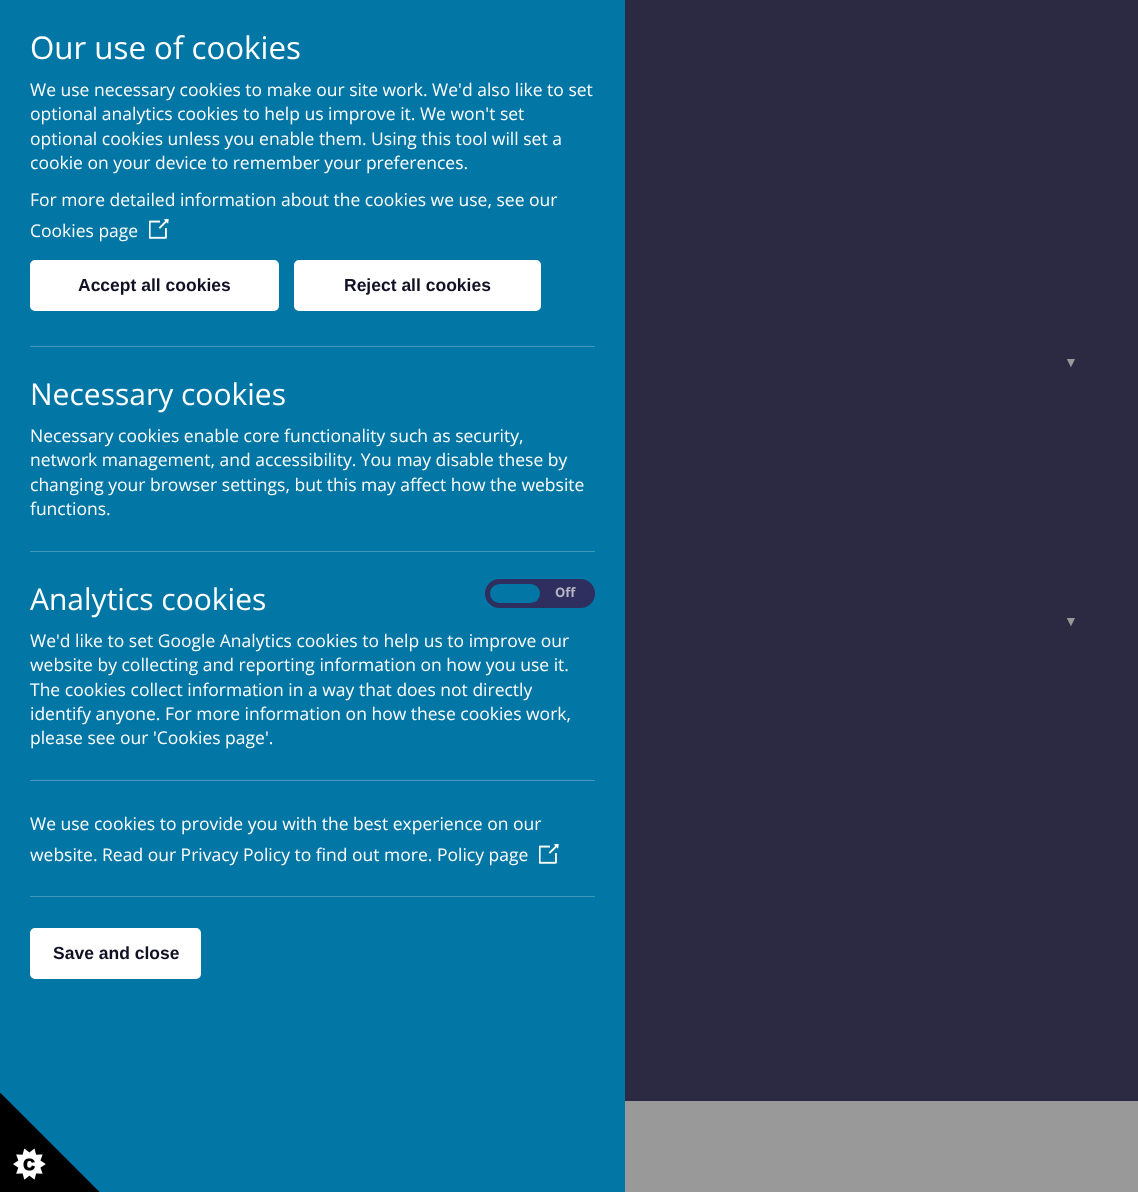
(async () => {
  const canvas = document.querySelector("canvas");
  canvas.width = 1138;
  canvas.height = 1192;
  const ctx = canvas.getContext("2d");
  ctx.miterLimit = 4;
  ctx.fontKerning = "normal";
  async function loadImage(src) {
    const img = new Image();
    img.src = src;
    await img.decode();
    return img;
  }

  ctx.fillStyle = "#999999";
  ctx.fillRect(0, 0, 1138, 1192);
  ctx.fillStyle = "#0276a5";
  ctx.fillRect(0, 0, 625, 1192);
  ctx.drawImage(await loadImage("img/1.png"), 149, 219, 20, 20);
  ctx.fillStyle = "#ffffff";
  ctx.beginPath();
  ctx.roundRect(31.5, 261.5, 246, 48, 3.5);
  ctx.fill();
  ctx.strokeStyle = "#ffffff";
  ctx.lineWidth = 3;
  ctx.stroke();
  ctx.beginPath();
  ctx.roundRect(295.5, 261.5, 244, 48, 3.5);
  ctx.fill();
  ctx.stroke();
  ctx.fillStyle = "#4198bc";
  ctx.fillRect(30, 346, 565, 1);
  ctx.fillRect(30, 551, 565, 1);
  ctx.fillStyle = "#2f2f5f";
  ctx.beginPath();
  ctx.roundRect(487.5, 581.5, 105, 24, 12);
  ctx.fill();
  ctx.strokeStyle = "#2f2f5f";
  ctx.lineWidth = 5;
  ctx.stroke();
  ctx.fillStyle = "#0276a5";
  ctx.beginPath();
  ctx.roundRect(490, 584, 50, 19, 9.5);
  ctx.fill();
  ctx.fillStyle = "#4198bc";
  ctx.fillRect(30, 780, 565, 1);
  ctx.drawImage(await loadImage("img/1.png"), 539, 844, 20, 20);
  ctx.fillRect(30, 896, 565, 1);
  ctx.fillStyle = "#ffffff";
  ctx.beginPath();
  ctx.roundRect(31.5, 929.5, 168, 48, 3.5);
  ctx.fill();
  ctx.strokeStyle = "#ffffff";
  ctx.lineWidth = 3;
  ctx.stroke();
  ctx.drawImage(await loadImage("img/2.png"), 0, 1093, 100, 99);
  ctx.fillStyle = "#2b2a42";
  ctx.fillRect(625, 0, 513, 1101);
  ctx.font = "31.25px Open Sans";
  ctx.fillStyle = "#ffffff";
  ctx.fillText("Our use of cookies", 30, 59);
  ctx.font = "17.5px Open Sans";
  for (const [text, x, y] of [
    ["We use necessary cookies to make our site work. We'd also like to set", 30, 96],
    ["optional analytics cookies to help us improve it. We won't set", 30, 120],
    ["optional cookies unless you enable them. Using this tool will set a", 30, 145],
    ["cookie on your device to remember your preferences.", 30, 169],
    ["For more detailed information about the cookies we use, see our", 30, 206],
    ["Cookies page", 30, 237],
  ]) {
    ctx.fillText(text, x, y);
  }
  ctx.font = "bold 17.5px Liberation Sans";
  ctx.fillStyle = "#111125";
  ctx.fillText("Accept all cookies", 78, 291);
  ctx.fillText("Reject all cookies", 344, 291);
  ctx.font = "30px Open Sans";
  ctx.fillStyle = "#ffffff";
  ctx.fillText("Necessary cookies", 30, 405);
  ctx.font = "17.5px Open Sans";
  for (const [text, x, y] of [
    ["Necessary cookies enable core functionality such as security,", 30, 442],
    ["network management, and accessibility. You may disable these by", 30, 466],
    ["changing your browser settings, but this may affect how the website", 30, 491],
    ["functions.", 30, 515],
  ]) {
    ctx.fillText(text, x, y);
  }
  ctx.font = "30px Open Sans";
  ctx.fillText("Analytics cookies", 30, 610);
  ctx.font = "bold 13px Open Sans";
  ctx.fillStyle = "#b6b6c7";
  ctx.fillText("Off", 555, 597);
  ctx.font = "17.5px Open Sans";
  ctx.fillStyle = "#ffffff";
  for (const [text, x, y] of [
    ["We'd like to set Google Analytics cookies to help us to improve our", 30, 647],
    ["website by collecting and reporting information on how you use it.", 30, 671],
    ["The cookies collect information in a way that does not directly", 30, 696],
    ["identify anyone. For more information on how these cookies work,", 30, 720],
    ["please see our 'Cookies page'.", 30, 744],
    ["We use cookies to provide you with the best experience on our", 30, 830],
    ["website. Read our Privacy Policy to find out more. Policy page", 30, 861],
  ]) {
    ctx.fillText(text, x, y);
  }
  ctx.font = "bold 17.5px Liberation Sans";
  ctx.fillStyle = "#111125";
  ctx.fillText("Save and close", 53, 959);
  ctx.font = "14px Liberation Sans";
  ctx.fillStyle = "#999999";
  ctx.fillText("▼", 1064, 367);
  ctx.fillText("▼", 1064, 626);
})();
